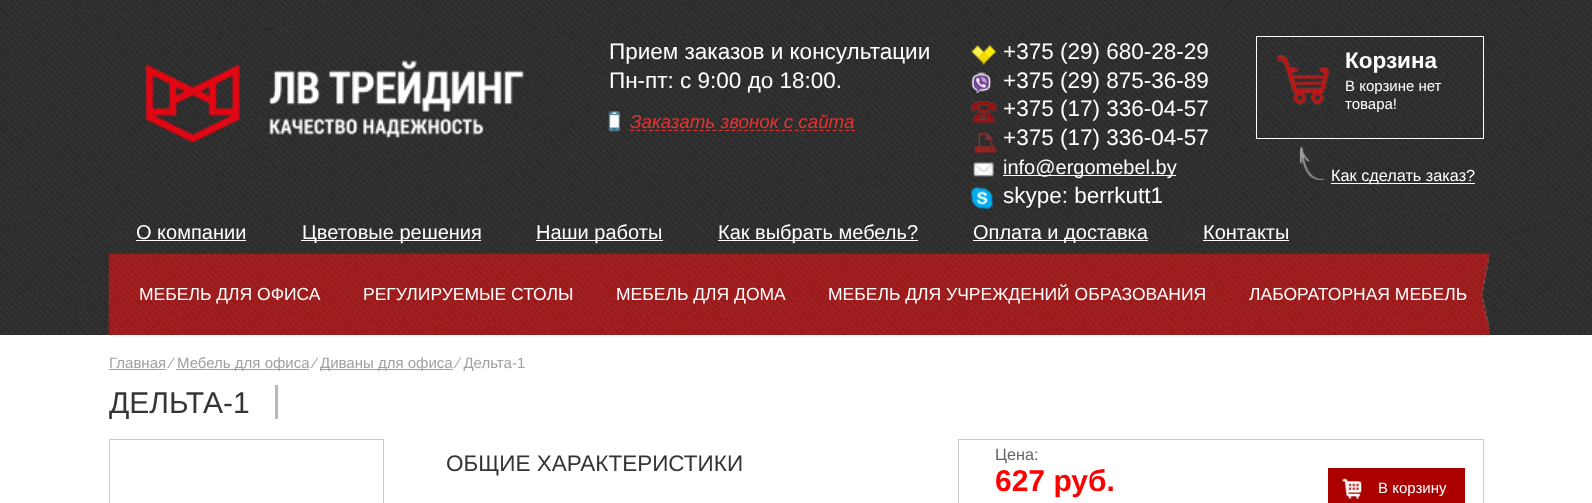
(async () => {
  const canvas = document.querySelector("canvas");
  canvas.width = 1592;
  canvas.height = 503;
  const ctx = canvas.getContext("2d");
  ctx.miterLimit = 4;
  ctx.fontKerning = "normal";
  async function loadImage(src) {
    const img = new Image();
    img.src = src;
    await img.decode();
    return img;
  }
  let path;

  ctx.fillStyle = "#ffffff";
  ctx.fillRect(0, 0, 1592, 503);
  ctx.drawImage(await loadImage("img/1.png"), 0, 0, 1592, 335);
  ctx.drawImage(await loadImage("img/2.png"), 145, 60, 379, 84);
  ctx.drawImage(await loadImage("img/3.png"), 608, 111, 12, 21);
  path = new Path2D("M630 130.5H855");
  ctx.strokeStyle = "#e43434";
  ctx.lineWidth = 1.2;
  ctx.setLineDash([3.75, 2.58]);
  ctx.stroke(path);
  ctx.drawImage(await loadImage("img/4.png"), 971, 44, 26, 21);
  ctx.drawImage(await loadImage("img/5.png"), 971, 72, 21, 22);
  ctx.drawImage(await loadImage("img/6.png"), 971, 101, 26, 22);
  ctx.drawImage(await loadImage("img/7.png"), 973, 132, 24, 21);
  ctx.drawImage(await loadImage("img/8.png"), 973, 162, 21, 15);
  ctx.fillRect(1003, 175, 173, 1);
  ctx.drawImage(await loadImage("img/9.png"), 971, 187, 22, 22);
  ctx.drawImage(await loadImage("img/10.png"), 1277, 53, 53, 55);
  ctx.strokeStyle = "#ffffff";
  ctx.lineWidth = 1;
  ctx.setLineDash([]);
  ctx.strokeRect(1256.5, 36.5, 227, 102);
  ctx.drawImage(await loadImage("img/11.png"), 1300, 146, 24, 34);
  ctx.fillRect(1331, 183, 144, 1);
  ctx.drawImage(await loadImage("img/12.png"), 109, 210, 1375, 44);
  ctx.drawImage(await loadImage("img/13.png"), 135, 221, 132, 33);
  for (const [x, y, w, h, color] of [
    [136, 240, 110, 1, "#ffffff"],
    [301, 240, 180, 1, "#ffffff"],
    [536, 240, 127, 1, "#ffffff"],
    [718, 240, 200, 1, "#ffffff"],
    [973, 240, 175, 1, "#ffffff"],
    [1203, 240, 86, 1, "#ffffff"],
  ]) {
    ctx.fillStyle = color;
    ctx.fillRect(x, y, w, h);
  }
  ctx.drawImage(await loadImage("img/14.png"), 108, 253, 1382, 82);
  ctx.drawImage(await loadImage("img/15.png"), 1481, 253, 9, 77);
  for (const [x, y, w, h, color] of [
    [109, 369, 57, 1, "#a0a0a0"],
    [176, 369, 133, 1, "#a0a0a0"],
    [320, 369, 133, 1, "#a0a0a0"],
    [275, 385, 3, 34, "#b9b9b9"],
  ]) {
    ctx.fillStyle = color;
    ctx.fillRect(x, y, w, h);
  }
  ctx.strokeStyle = "#cacaca";
  ctx.strokeRect(109.5, 439.5, 274, 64);
  ctx.strokeRect(958.5, 439.5, 525, 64);
  ctx.fillStyle = "#ab0000";
  ctx.fillRect(1328, 468, 137, 35);
  ctx.drawImage(await loadImage("img/16.png"), 1342, 478, 20, 21);
  ctx.font = "22.5px Liberation Sans";
  ctx.fillStyle = "#ffffff";
  ctx.fillText("Прием заказов и консультации", 609, 59);
  ctx.fillText("Пн-пт: с 9:00 до 18:00.", 609, 88);
  ctx.font = "italic 18.75px Liberation Sans";
  ctx.fillStyle = "#e43434";
  ctx.fillText("Заказать звонок с сайта", 630, 128);
  ctx.font = "22.5px Liberation Sans";
  ctx.fillStyle = "#ffffff";
  for (const [text, x, y] of [
    ["+375 (29) 680-28-29", 1003, 59],
    ["+375 (29) 875-36-89", 1003, 88],
    ["+375 (17) 336-04-57", 1003, 116],
    ["+375 (17) 336-04-57", 1003, 145],
  ]) {
    ctx.fillText(text, x, y);
  }
  ctx.font = "20px Liberation Sans";
  ctx.fillText("info@ergomebel.by", 1003, 174);
  ctx.font = "22.5px Liberation Sans";
  ctx.fillText("skype: berrkutt1", 1003, 203);
  ctx.font = "bold 22.5px Liberation Sans";
  ctx.fillText("Корзина", 1345, 68);
  ctx.font = "15px Liberation Sans";
  ctx.fillText("В корзине нет", 1345, 91);
  ctx.fillText("товара!", 1345, 109);
  ctx.font = "16.25px Liberation Sans";
  ctx.fillText("Как сделать заказ?", 1331, 181);
  ctx.font = "20px Liberation Sans";
  for (const [text, x, y] of [
    ["О компании", 136, 239],
    ["Цветовые решения", 302, 239],
    ["Наши работы", 536, 239],
    ["Как выбрать мебель?", 718, 239],
    ["Оплата и доставка", 973, 239],
    ["Контакты", 1203, 239],
  ]) {
    ctx.fillText(text, x, y);
  }
  ctx.font = "17.5px Liberation Sans";
  for (const [text, x, y] of [
    ["МЕБЕЛЬ ДЛЯ ОФИСА", 139, 300],
    ["РЕГУЛИРУЕМЫЕ СТОЛЫ", 363, 300],
    ["МЕБЕЛЬ ДЛЯ ДОМА", 616, 300],
    ["МЕБЕЛЬ ДЛЯ УЧРЕЖДЕНИЙ ОБРАЗОВАНИЯ", 828, 300],
    ["ЛАБОРАТОРНАЯ МЕБЕЛЬ", 1249, 300],
  ]) {
    ctx.fillText(text, x, y);
  }
  ctx.font = "15px Liberation Sans";
  ctx.fillStyle = "#a0a0a0";
  for (const [text, x, y] of [
    ["Главная ⁄", 109, 368],
    ["Мебель для офиса ⁄", 177, 368],
    ["Диваны для офиса ⁄ Дельта-1", 320, 368],
  ]) {
    ctx.fillText(text, x, y);
  }
  ctx.font = "30px Liberation Sans";
  ctx.fillStyle = "#353535";
  ctx.fillText("ДЕЛЬТА-1", 109, 413);
  ctx.font = "22.5px Liberation Sans";
  ctx.fillText("ОБЩИЕ ХАРАКТЕРИСТИКИ", 446, 471);
  ctx.font = "16.25px Liberation Sans";
  ctx.fillStyle = "#646464";
  ctx.fillText("Цена:", 995, 460);
  ctx.font = "bold 30px Liberation Sans";
  ctx.fillStyle = "#ff0000";
  ctx.fillText("627 руб.", 995, 491);
  ctx.font = "15px Liberation Sans";
  ctx.fillStyle = "#ffffff";
  ctx.fillText("В корзину", 1378, 493);
})();
